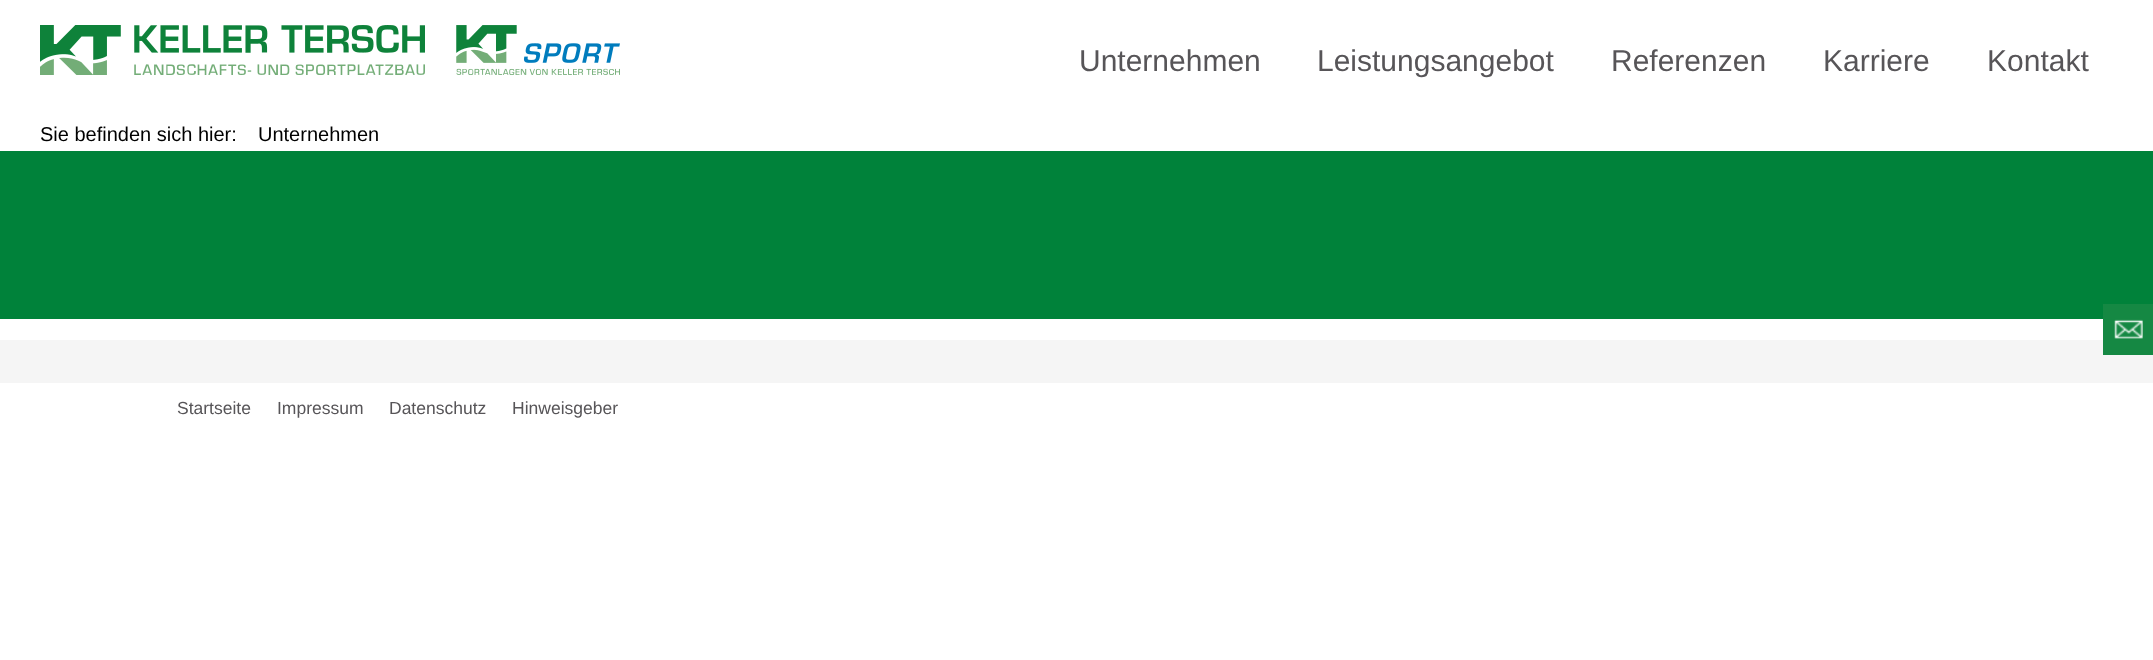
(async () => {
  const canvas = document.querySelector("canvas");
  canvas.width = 2153;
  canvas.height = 660;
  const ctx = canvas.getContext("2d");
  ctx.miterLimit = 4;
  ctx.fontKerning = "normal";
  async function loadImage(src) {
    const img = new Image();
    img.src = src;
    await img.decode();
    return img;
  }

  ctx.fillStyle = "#ffffff";
  ctx.fillRect(0, 0, 2153, 660);
  ctx.drawImage(await loadImage("img/1.png"), 40, 25, 385, 50);
  ctx.drawImage(await loadImage("img/2.png"), 456, 25, 164, 50);
  for (const [x, y, w, h, color] of [
    [0, 151, 2153, 168, "#00823a"],
    [0, 340, 2153, 43, "#f5f5f5"],
    [2103, 304, 50, 51, "#158843"],
  ]) {
    ctx.fillStyle = color;
    ctx.fillRect(x, y, w, h);
  }
  ctx.drawImage(await loadImage("img/3.png"), 2114, 319, 29, 20);
  ctx.font = "30px Liberation Sans";
  ctx.fillStyle = "#575558";
  for (const [text, x, y] of [
    ["Unternehmen", 1079, 71],
    ["Leistungsangebot", 1317, 71],
    ["Referenzen", 1611, 71],
    ["Karriere", 1823, 71],
    ["Kontakt", 1987, 71],
  ]) {
    ctx.fillText(text, x, y);
  }
  ctx.font = "20px Liberation Sans";
  ctx.fillStyle = "#000000";
  ctx.fillText("Sie befinden sich hier:", 40, 141);
  ctx.fillText("Unternehmen", 258, 141);
  ctx.font = "17.5px Liberation Sans";
  ctx.fillStyle = "#575558";
  for (const [text, x, y] of [
    ["Startseite", 177, 414],
    ["Impressum", 277, 414],
    ["Datenschutz", 389, 414],
    ["Hinweisgeber", 512, 414],
  ]) {
    ctx.fillText(text, x, y);
  }
})();
